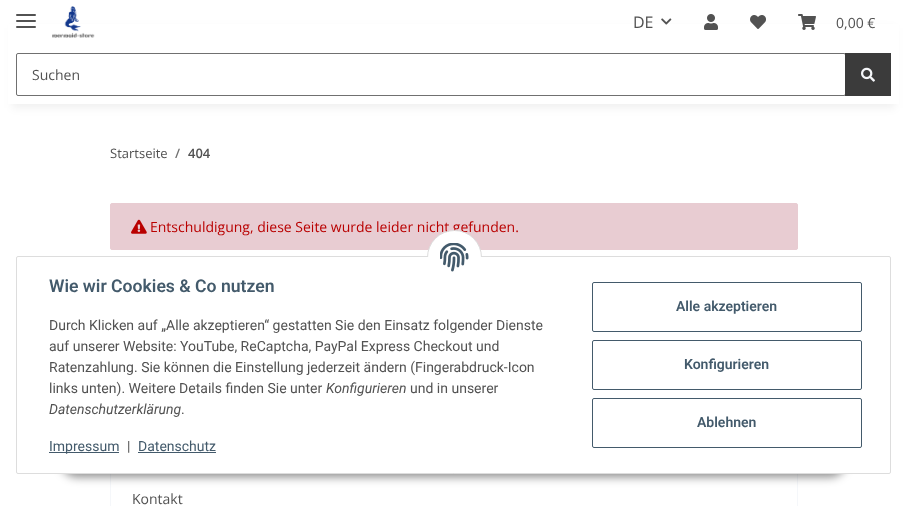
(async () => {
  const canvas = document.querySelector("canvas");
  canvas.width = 907;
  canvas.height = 506;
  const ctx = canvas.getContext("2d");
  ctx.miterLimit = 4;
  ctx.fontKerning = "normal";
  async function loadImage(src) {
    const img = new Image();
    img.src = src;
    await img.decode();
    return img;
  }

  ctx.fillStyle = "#ffffff";
  ctx.fillRect(0, 0, 907, 506);
  ctx.fillStyle = "rgba(0, 0, 0, 0.06)";
  ctx.filter = "blur(4.5px)";
  ctx.beginPath();
  ctx.rect(12, 28, 883, 80);
  ctx.fill();
  ctx.filter = "none";
  ctx.fillStyle = "#ffffff";
  ctx.fillRect(8, 24, 891, 80);
  ctx.fillStyle = "#525252";
  ctx.beginPath();
  ctx.roundRect(16, 20, 20, 2, 1);
  ctx.fill();
  ctx.beginPath();
  ctx.roundRect(16, 14, 20, 2, 1);
  ctx.fill();
  ctx.beginPath();
  ctx.roundRect(16, 26, 20, 2, 1);
  ctx.fill();
  ctx.drawImage(await loadImage("img/1.png"), 52, 6, 43, 32);
  ctx.drawImage(await loadImage("img/2.png"), 661, 18, 11, 7);
  ctx.drawImage(await loadImage("img/3.png"), 704, 14, 14, 16);
  ctx.drawImage(await loadImage("img/4.png"), 750, 15, 16, 14);
  ctx.drawImage(await loadImage("img/5.png"), 798, 14, 18, 16);
  ctx.beginPath();
  ctx.roundRect(16.5, 53.5, 829, 42, 1.5);
  ctx.strokeStyle = "#707070";
  ctx.stroke();
  ctx.fillStyle = "#3b3b3b";
  ctx.fillRect(845, 53, 46, 43);
  ctx.drawImage(await loadImage("img/6.png"), 861, 67, 14, 15);
  ctx.fillStyle = "#e8ccd2";
  ctx.beginPath();
  ctx.roundRect(110.5, 203.5, 687, 46, 1.5);
  ctx.fill();
  ctx.strokeStyle = "#e8ccd2";
  ctx.stroke();
  ctx.drawImage(await loadImage("img/7.png"), 131, 219, 16, 15);
  ctx.strokeStyle = "#f5f7fa";
  ctx.strokeRect(110.5, 266.5, 687, 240);
  ctx.fillStyle = "rgba(0, 0, 0, 0.45)";
  ctx.filter = "blur(5px)";
  ctx.beginPath();
  ctx.roundRect(61, 445, 785, 32, 16);
  ctx.fill();
  ctx.filter = "none";
  ctx.fillStyle = "#ffffff";
  ctx.beginPath();
  ctx.roundRect(16.5, 256.5, 874, 217, 1.5);
  ctx.fill();
  ctx.strokeStyle = "#dddddd";
  ctx.stroke();
  ctx.fillStyle = "#435a6b";
  ctx.fillRect(49, 452, 70, 1);
  ctx.fillRect(138, 452, 78, 1);
  ctx.beginPath();
  ctx.roundRect(592.5, 282.5, 269, 49, 1.5);
  ctx.strokeStyle = "#435a6b";
  ctx.stroke();
  ctx.beginPath();
  ctx.roundRect(592.5, 340.5, 269, 49, 1.5);
  ctx.stroke();
  ctx.beginPath();
  ctx.roundRect(592.5, 398.5, 269, 49, 1.5);
  ctx.stroke();
  ctx.font = "16px Open Sans";
  ctx.fillStyle = "#525252";
  ctx.fillText("DE", 633, 28);
  ctx.font = "14px Open Sans";
  ctx.fillText("0,00 €", 836, 28);
  ctx.fillText("Suchen", 32, 80);
  ctx.font = "13px Open Sans";
  ctx.fillText("Startseite", 110, 158);
  ctx.font = "600 13px Open Sans";
  ctx.fillStyle = "#707070";
  ctx.fillText("/", 175, 158);
  ctx.fillStyle = "#525252";
  ctx.fillText("404", 188, 158);
  ctx.font = "14px Open Sans";
  ctx.fillStyle = "#b90000";
  ctx.fillText("Entschuldigung, diese Seite wurde leider nicht gefunden.", 150, 232);
  ctx.fillStyle = "#525252";
  ctx.fillText("Kontakt", 132, 504);
  ctx.fillStyle = "#ffffff";
  ctx.beginPath();
  ctx.arc(454.5, 257.5, 27, 0, Math.PI * 2);
  ctx.fill();
  ctx.strokeStyle = "#dddddd";
  ctx.stroke();
  ctx.fillRect(427, 257, 55, 28);
  ctx.drawImage(await loadImage("img/8.png"), 440, 243, 29, 29);
  ctx.font = "600 17.6px Roboto";
  ctx.fillStyle = "#435a6b";
  ctx.fillText("Wie wir Cookies & Co nutzen", 49, 292);
  ctx.font = "14px Roboto";
  ctx.fillStyle = "#525252";
  for (const [text, x, y] of [
    ["Durch Klicken auf „Alle akzeptieren“ gestatten Sie den Einsatz folgender Dienste", 49, 330],
    ["auf unserer Website: YouTube, ReCaptcha, PayPal Express Checkout und", 49, 351],
    ["Ratenzahlung. Sie können die Einstellung jederzeit ändern (Fingerabdruck-Icon", 49, 372],
    ["links unten). Weitere Details finden Sie unter", 49, 393],
  ]) {
    ctx.fillText(text, x, y);
  }
  ctx.font = "italic 14px Roboto";
  ctx.fillText("Konfigurieren", 326, 393);
  ctx.font = "14px Roboto";
  ctx.fillText("und in unserer", 410, 393);
  ctx.font = "italic 14px Roboto";
  ctx.fillText("Datenschutzerklärung", 49, 414);
  ctx.font = "14px Roboto";
  ctx.fillText(".", 181, 414);
  ctx.fillStyle = "#435a6b";
  ctx.fillText("Impressum", 49, 451);
  ctx.fillStyle = "#525252";
  ctx.fillText("|", 127, 451);
  ctx.fillStyle = "#435a6b";
  ctx.fillText("Datenschutz", 138, 451);
  ctx.font = "600 14px Roboto";
  for (const [text, x, y] of [
    ["Alle akzeptieren", 676, 311],
    ["Konfigurieren", 684, 369],
    ["Ablehnen", 697, 427],
  ]) {
    ctx.fillText(text, x, y);
  }
})();
